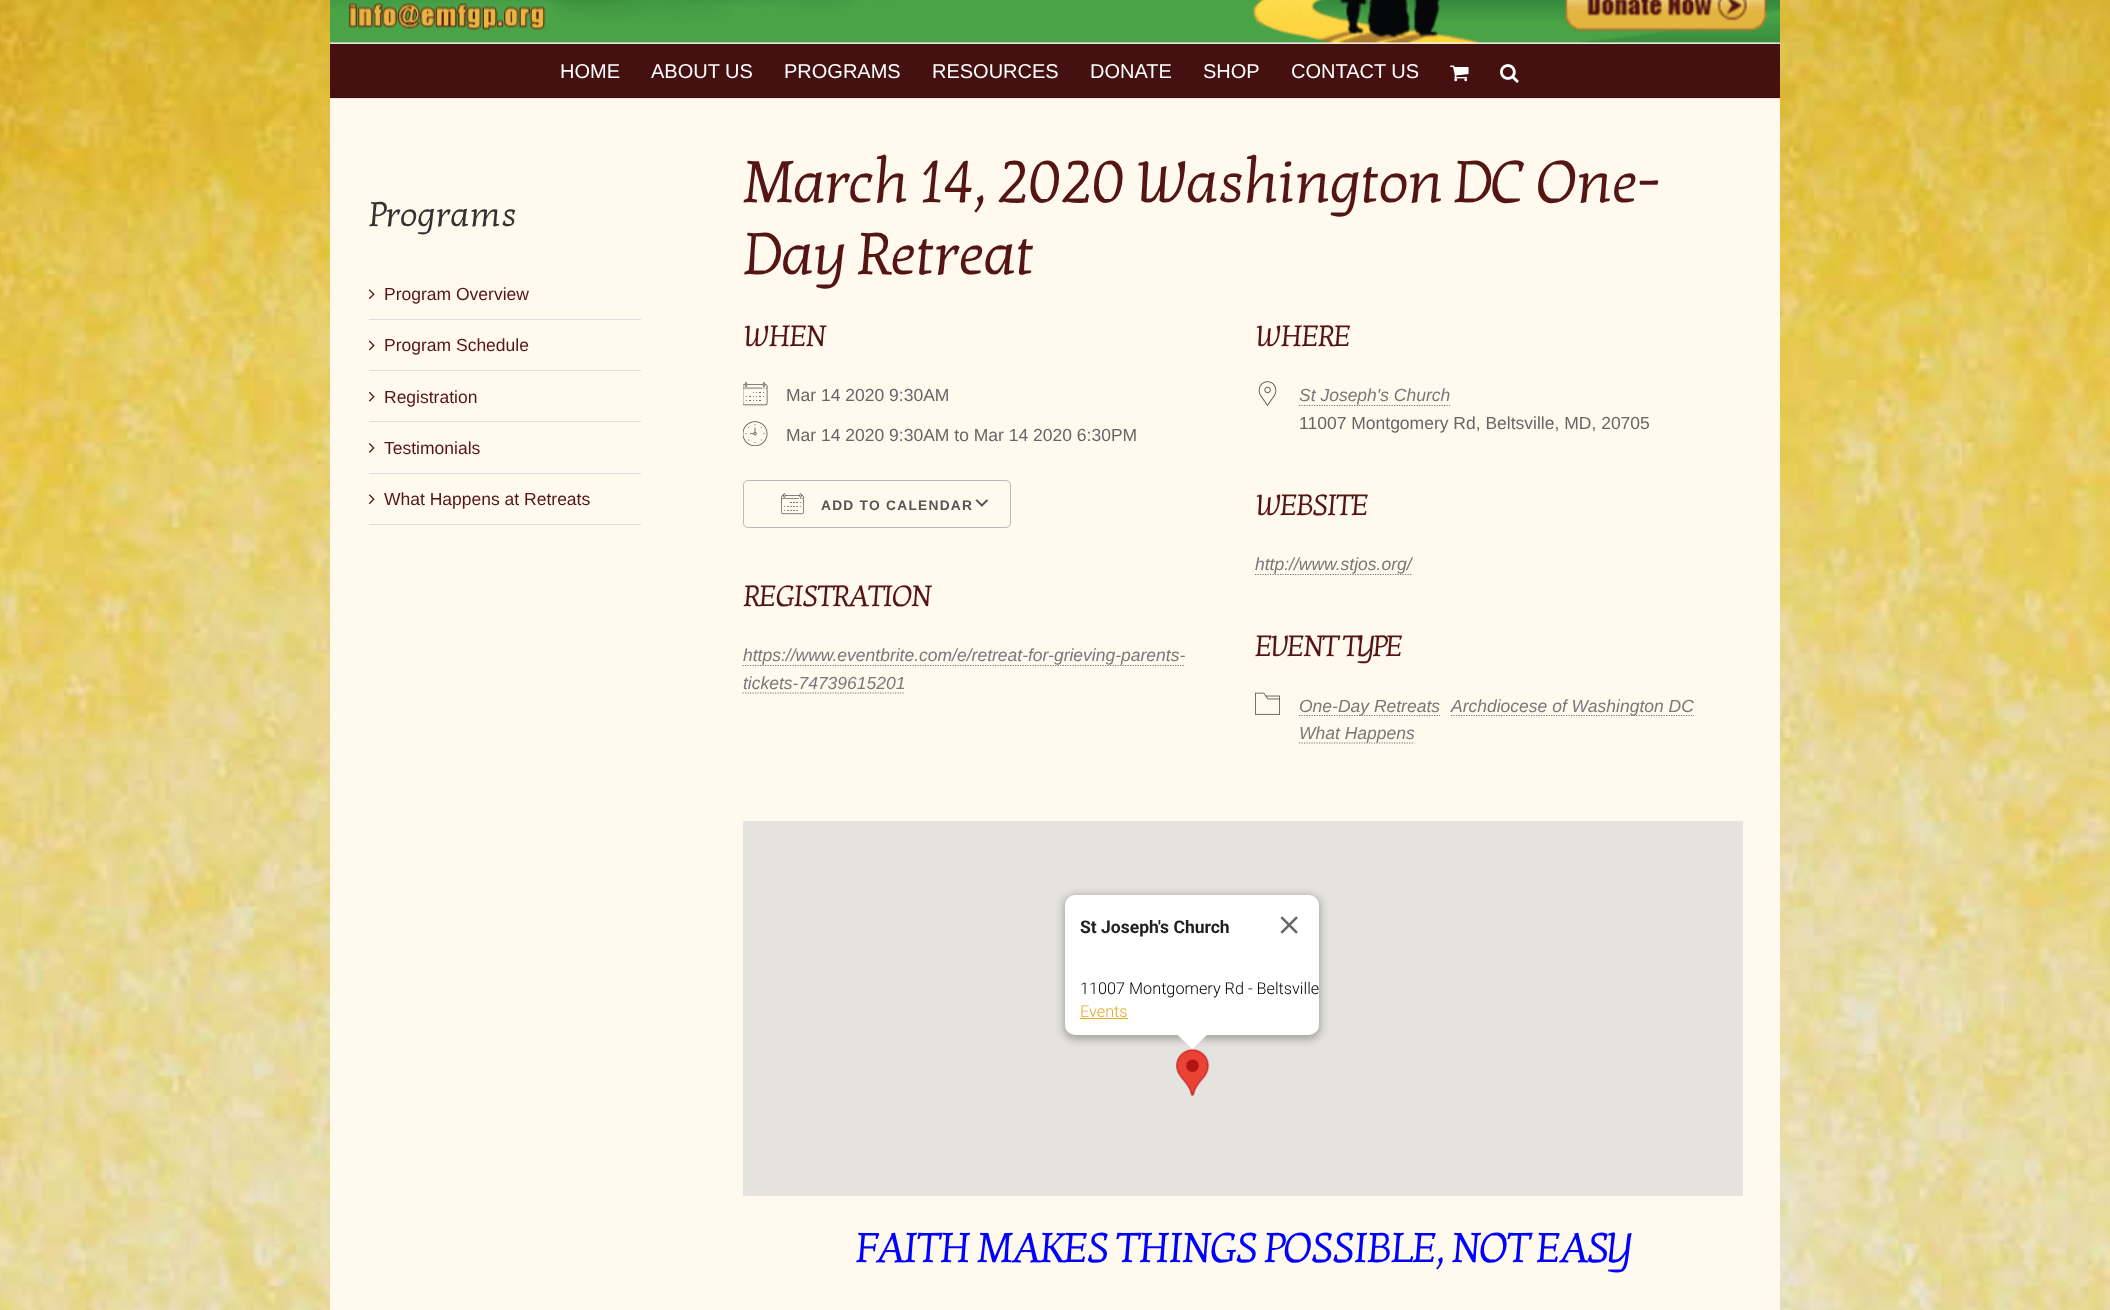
(async () => {
  const canvas = document.querySelector("canvas");
  canvas.width = 2110;
  canvas.height = 1310;
  const ctx = canvas.getContext("2d");
  ctx.miterLimit = 4;
  ctx.fontKerning = "normal";
  async function loadImage(src) {
    const img = new Image();
    img.src = src;
    await img.decode();
    return img;
  }
  let path;

  ctx.fillStyle = "#ffffff";
  ctx.fillRect(0, 0, 2110, 1310);
  ctx.drawImage(await loadImage("img/1.png"), 0, 0, 2110, 1310);
  ctx.fillStyle = "#fffaed";
  ctx.fillRect(330, 0, 1450, 43);
  ctx.fillStyle = "#e5e5e5";
  ctx.fillRect(330, 43, 1450, 1);
  ctx.drawImage(await loadImage("img/2.png"), 330, 0, 1450, 43);
  ctx.fillStyle = "#441010";
  ctx.fillRect(330, 44, 1450, 54);
  ctx.fillStyle = "#e5e5e5";
  ctx.fillRect(330, 98, 1450, 1);
  ctx.drawImage(await loadImage("img/3.png"), 1450, 65, 19, 17);
  ctx.drawImage(await loadImage("img/4.png"), 1500, 64, 19, 19);
  ctx.fillStyle = "#fffaed";
  ctx.fillRect(330, 99, 1450, 1211);
  ctx.fillStyle = "#e0dede";
  ctx.fillRect(369, 319, 272, 1);
  ctx.drawImage(await loadImage("img/5.png"), 368, 289, 7, 10);
  ctx.fillRect(369, 370, 272, 1);
  ctx.drawImage(await loadImage("img/6.png"), 368, 340, 7, 11);
  ctx.fillRect(369, 421, 272, 1);
  ctx.drawImage(await loadImage("img/7.png"), 368, 391, 7, 11);
  ctx.fillRect(369, 473, 272, 1);
  ctx.drawImage(await loadImage("img/8.png"), 368, 443, 7, 10);
  ctx.fillRect(369, 524, 272, 1);
  ctx.drawImage(await loadImage("img/5.png"), 368, 494, 7, 10);
  ctx.drawImage(await loadImage("img/9.png"), 743, 382, 25, 24);
  ctx.drawImage(await loadImage("img/10.png"), 743, 421, 25, 25);
  ctx.drawImage(await loadImage("img/11.png"), 975, 499, 14, 8);
  ctx.beginPath();
  ctx.roundRect(743.5, 480.5, 267, 47, 4.5);
  ctx.strokeStyle = "#bababa";
  ctx.stroke();
  ctx.drawImage(await loadImage("img/12.png"), 781, 493, 23, 22);
  path = new Path2D("M742.5 665.5H1184.5");
  ctx.strokeStyle = "#787878";
  ctx.lineWidth = 1.2;
  ctx.setLineDash([1.25, 1.25]);
  ctx.stroke(path);
  path = new Path2D("M742.5 693H905");
  ctx.stroke(path);
  ctx.drawImage(await loadImage("img/13.png"), 1258, 381, 19, 25);
  path = new Path2D("M1299 405.5H1450");
  ctx.stroke(path);
  path = new Path2D("M1255 574.5H1411.5");
  ctx.stroke(path);
  ctx.drawImage(await loadImage("img/14.png"), 1255, 692, 25, 23);
  path = new Path2D("M1299 715.5H1440");
  ctx.stroke(path);
  path = new Path2D("M1451 715.5H1694");
  ctx.stroke(path);
  path = new Path2D("M1299 743H1414.5");
  ctx.stroke(path);
  ctx.fillStyle = "#e5e3df";
  ctx.fillRect(743, 821, 1000, 375);
  ctx.drawImage(await loadImage("img/16.png"), 1176, 1048, 34, 48);
  ctx.fillStyle = "rgba(0, 0, 0, 0.3)";
  ctx.filter = "blur(4.5px)";
  ctx.beginPath();
  ctx.roundRect(1064, 896, 256, 143, 11);
  ctx.fill();
  ctx.filter = "none";
  ctx.fillStyle = "#ffffff";
  ctx.beginPath();
  ctx.roundRect(1065, 895, 254, 140, 10);
  ctx.fill();
  ctx.drawImage(await loadImage("img/15.png"), 1280, 916, 18, 18);
  ctx.fillStyle = "#e9a825";
  ctx.fillRect(1080, 1018, 48, 1);
  ctx.fillStyle = "#ffffff";
  path = new Path2D("M1178 1035.5V1034H1208L1192.5 1049Z");
  ctx.fill(path);
  ctx.font = "20px Liberation Sans";
  for (const [text, x, y] of [
    ["HOME", 560, 78],
    ["ABOUT US", 651, 78],
    ["PROGRAMS", 784, 78],
    ["RESOURCES", 932, 78],
    ["DONATE", 1090, 78],
    ["SHOP", 1203, 78],
    ["CONTACT US", 1291, 78],
  ]) {
    ctx.fillText(text, x, y);
  }
  ctx.font = "35px Kotta One";
  ctx.fillStyle = "#333333";
  ctx.fillText("Programs", 369, 226);
  ctx.font = "17.5px Liberation Sans";
  ctx.fillStyle = "#551515";
  for (const [text, x, y] of [
    ["Program Overview", 384, 300],
    ["Program Schedule", 384, 351],
    ["Registration", 384, 403],
    ["Testimonials", 384, 454],
    ["What Happens at Retreats", 384, 505],
  ]) {
    ctx.fillText(text, x, y);
  }
  ctx.letterSpacing = "-1.25px";
  ctx.font = "60px Kotta One";
  ctx.fillText("March 14, 2020 Washington DC One-", 743, 202);
  ctx.fillText("Day Retreat", 743, 274);
  ctx.font = "30px Kotta One";
  ctx.fillText("WHEN", 743, 346);
  ctx.letterSpacing = "0px";
  ctx.font = "17.5px Liberation Sans";
  ctx.fillStyle = "#666666";
  ctx.fillText("Mar 14 2020 9:30AM", 786, 401);
  ctx.fillText("Mar 14 2020 9:30AM to Mar 14 2020 6:30PM", 786, 441);
  ctx.letterSpacing = "1.25px";
  ctx.font = "bold 13.75px Liberation Sans";
  ctx.fillStyle = "#545454";
  ctx.fillText("ADD TO CALENDAR", 821, 510);
  ctx.letterSpacing = "-1.25px";
  ctx.font = "30px Kotta One";
  ctx.fillStyle = "#551515";
  ctx.fillText("REGISTRATION", 743, 606);
  ctx.letterSpacing = "0px";
  ctx.font = "italic 17.5px Liberation Sans";
  ctx.fillStyle = "#787878";
  ctx.fillText("https://www.eventbrite.com/e/retreat-for-grieving-parents-", 743, 661);
  ctx.fillText("tickets-74739615201", 743, 689);
  ctx.letterSpacing = "-1.25px";
  ctx.font = "30px Kotta One";
  ctx.fillStyle = "#551515";
  ctx.fillText("WHERE", 1255, 346);
  ctx.letterSpacing = "0px";
  ctx.font = "italic 17.5px Liberation Sans";
  ctx.fillStyle = "#787878";
  ctx.fillText("St Joseph's Church", 1299, 401);
  ctx.font = "17.5px Liberation Sans";
  ctx.fillStyle = "#666666";
  ctx.fillText("11007 Montgomery Rd, Beltsville, MD, 20705", 1299, 429);
  ctx.letterSpacing = "-1.25px";
  ctx.font = "30px Kotta One";
  ctx.fillStyle = "#551515";
  ctx.fillText("WEBSITE", 1255, 515);
  ctx.letterSpacing = "0px";
  ctx.font = "italic 17.5px Liberation Sans";
  ctx.fillStyle = "#787878";
  ctx.fillText("http://www.stjos.org/", 1255, 570);
  ctx.letterSpacing = "-1.25px";
  ctx.font = "30px Kotta One";
  ctx.fillStyle = "#551515";
  ctx.fillText("EVENT TYPE", 1255, 656);
  ctx.letterSpacing = "0px";
  ctx.font = "italic 17.5px Liberation Sans";
  ctx.fillStyle = "#787878";
  for (const [text, x, y] of [
    ["One-Day Retreats", 1299, 712],
    ["Archdiocese of Washington DC", 1451, 712],
    ["What Happens", 1299, 739],
  ]) {
    ctx.fillText(text, x, y);
  }
  ctx.font = "bold 17.5px Roboto";
  ctx.fillStyle = "#212121";
  ctx.fillText("St Joseph's Church", 1080, 933);
  ctx.font = "300 16.25px Roboto";
  ctx.fillStyle = "#000000";
  ctx.fillText("11007 Montgomery Rd - Beltsville", 1080, 994);
  ctx.fillStyle = "#e9a825";
  ctx.fillText("Events", 1080, 1017);
  ctx.letterSpacing = "-1.25px";
  ctx.font = "42.5px Kotta One";
  ctx.fillStyle = "#0000ff";
  ctx.fillText("FAITH MAKES THINGS POSSIBLE, NOT EASY", 855, 1262);
})();
